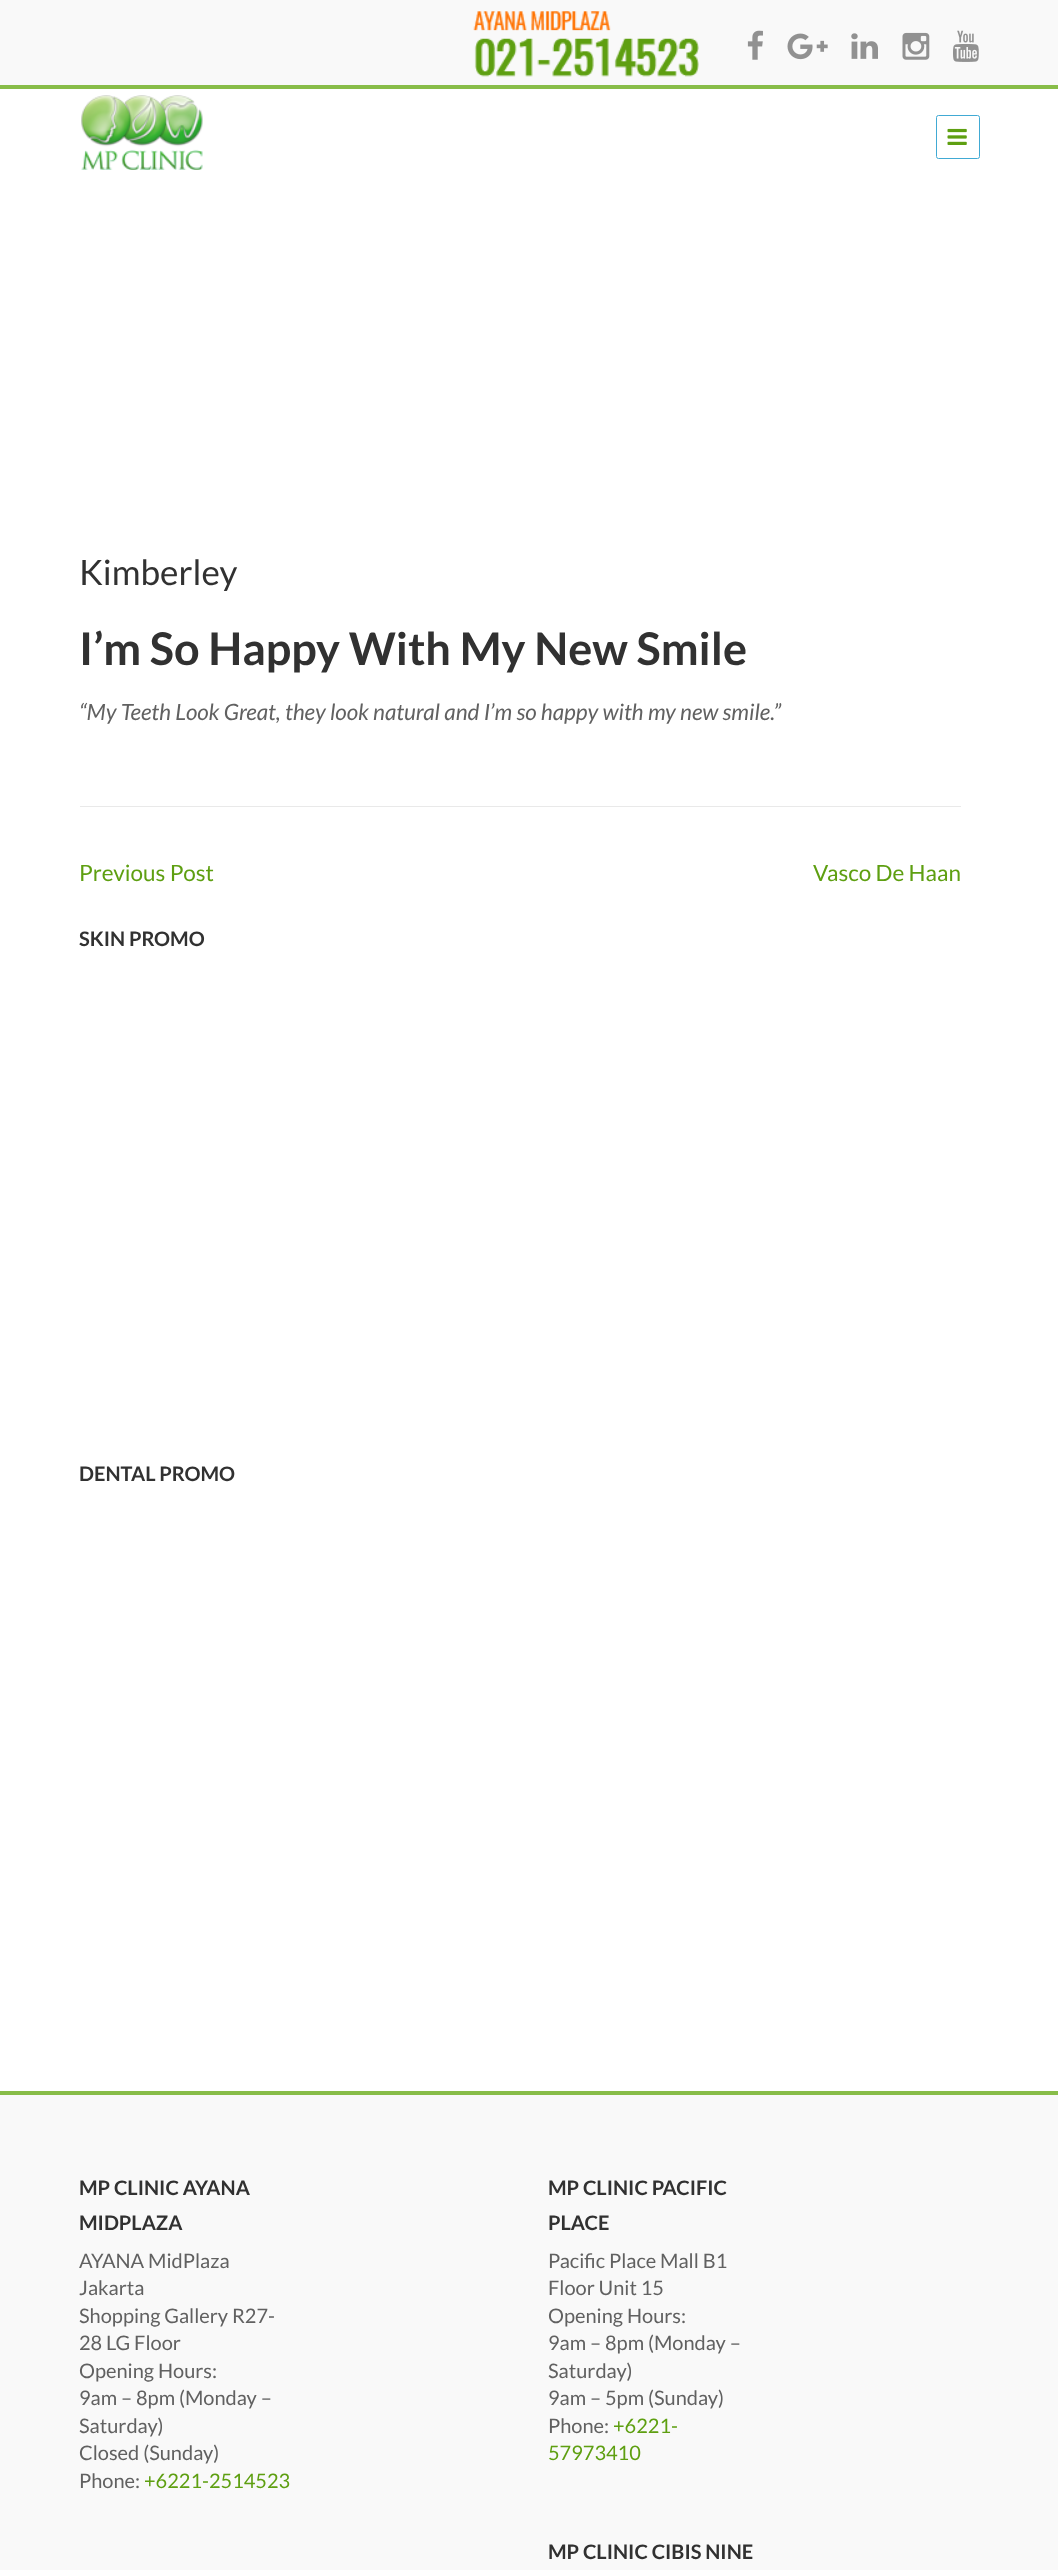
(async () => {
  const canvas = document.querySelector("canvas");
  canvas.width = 1058;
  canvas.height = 2570;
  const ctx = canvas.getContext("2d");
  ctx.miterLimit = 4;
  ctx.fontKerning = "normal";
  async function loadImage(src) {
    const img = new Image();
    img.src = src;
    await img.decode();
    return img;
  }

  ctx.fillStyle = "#ffffff";
  ctx.fillRect(0, 0, 1058, 2570);
  ctx.fillStyle = "#f9f9f9";
  ctx.fillRect(0, 0, 1058, 85);
  ctx.fillStyle = "#88bd49";
  ctx.fillRect(0, 85, 1058, 4);
  ctx.drawImage(await loadImage("img/1.png"), 473, 11, 226, 66);
  ctx.drawImage(await loadImage("img/2.png"), 747, 30, 16, 30);
  ctx.drawImage(await loadImage("img/3.png"), 787, 33, 41, 27);
  ctx.drawImage(await loadImage("img/4.png"), 851, 33, 27, 26);
  ctx.drawImage(await loadImage("img/5.png"), 902, 32, 28, 28);
  ctx.drawImage(await loadImage("img/6.png"), 953, 30, 26, 32);
  ctx.drawImage(await loadImage("img/7.png"), 81, 95, 122, 75);
  ctx.beginPath();
  ctx.roundRect(936.5, 115.5, 43, 43, 2);
  ctx.strokeStyle = "#41aad4";
  ctx.stroke();
  ctx.drawImage(await loadImage("img/8.png"), 947, 128, 20, 17);
  for (const [x, y, w, h, color] of [
    [80, 806, 881, 1, "#e9e9e9"],
    [0, 2095, 1058, 475, "#f9f9f9"],
    [0, 2091, 1058, 4, "#88bd49"],
  ]) {
    ctx.fillStyle = color;
    ctx.fillRect(x, y, w, h);
  }
  ctx.font = "35px Lato";
  ctx.fillStyle = "#313131";
  ctx.fillText("Kimberley", 79, 585);
  ctx.font = "bold 45px Lato";
  ctx.fillText("I’m So Happy With My New Smile", 79, 665);
  ctx.font = "italic 22.5px Lato";
  ctx.fillStyle = "#616161";
  ctx.fillText("“My Teeth Look Great, they look natural and I’m so happy with my new smile.”", 79, 720);
  ctx.font = "22.5px Lato";
  ctx.fillStyle = "#5e9f11";
  ctx.fillText("Previous Post", 79, 881);
  ctx.fillText("Vasco De Haan", 813, 881);
  ctx.font = "bold 20px Lato";
  ctx.fillStyle = "#313131";
  for (const [text, x, y] of [
    ["SKIN PROMO", 79, 946],
    ["DENTAL PROMO", 79, 1481],
    ["MP CLINIC AYANA", 79, 2195],
    ["MIDPLAZA", 79, 2230],
  ]) {
    ctx.fillText(text, x, y);
  }
  ctx.font = "20px Lato";
  ctx.fillStyle = "#616161";
  for (const [text, x, y] of [
    ["AYANA MidPlaza", 79, 2268],
    ["Jakarta", 79, 2295],
    ["Shopping Gallery R27-", 79, 2323],
    ["28 LG Floor", 79, 2350],
    ["Opening Hours:", 79, 2378],
    ["9am – 8pm (Monday –", 79, 2405],
    ["Saturday)", 79, 2433],
    ["Closed (Sunday)", 79, 2460],
    ["Phone:", 79, 2488],
  ]) {
    ctx.fillText(text, x, y);
  }
  ctx.fillStyle = "#5e9f11";
  ctx.fillText("+6221-2514523", 144, 2488);
  ctx.font = "bold 20px Lato";
  ctx.fillStyle = "#313131";
  ctx.fillText("MP CLINIC PACIFIC", 548, 2195);
  ctx.fillText("PLACE", 548, 2230);
  ctx.font = "20px Lato";
  ctx.fillStyle = "#616161";
  for (const [text, x, y] of [
    ["Pacific Place Mall B1", 548, 2268],
    ["Floor Unit 15", 548, 2295],
    ["Opening Hours:", 548, 2323],
    ["9am – 8pm (Monday –", 548, 2350],
    ["Saturday)", 548, 2378],
    ["9am – 5pm (Sunday)", 548, 2405],
    ["Phone:", 548, 2433],
  ]) {
    ctx.fillText(text, x, y);
  }
  ctx.fillStyle = "#5e9f11";
  ctx.fillText("+6221-", 613, 2433);
  ctx.fillText("57973410", 548, 2460);
  ctx.font = "bold 20px Lato";
  ctx.fillStyle = "#313131";
  ctx.fillText("MP CLINIC CIBIS NINE", 548, 2559);
})();
